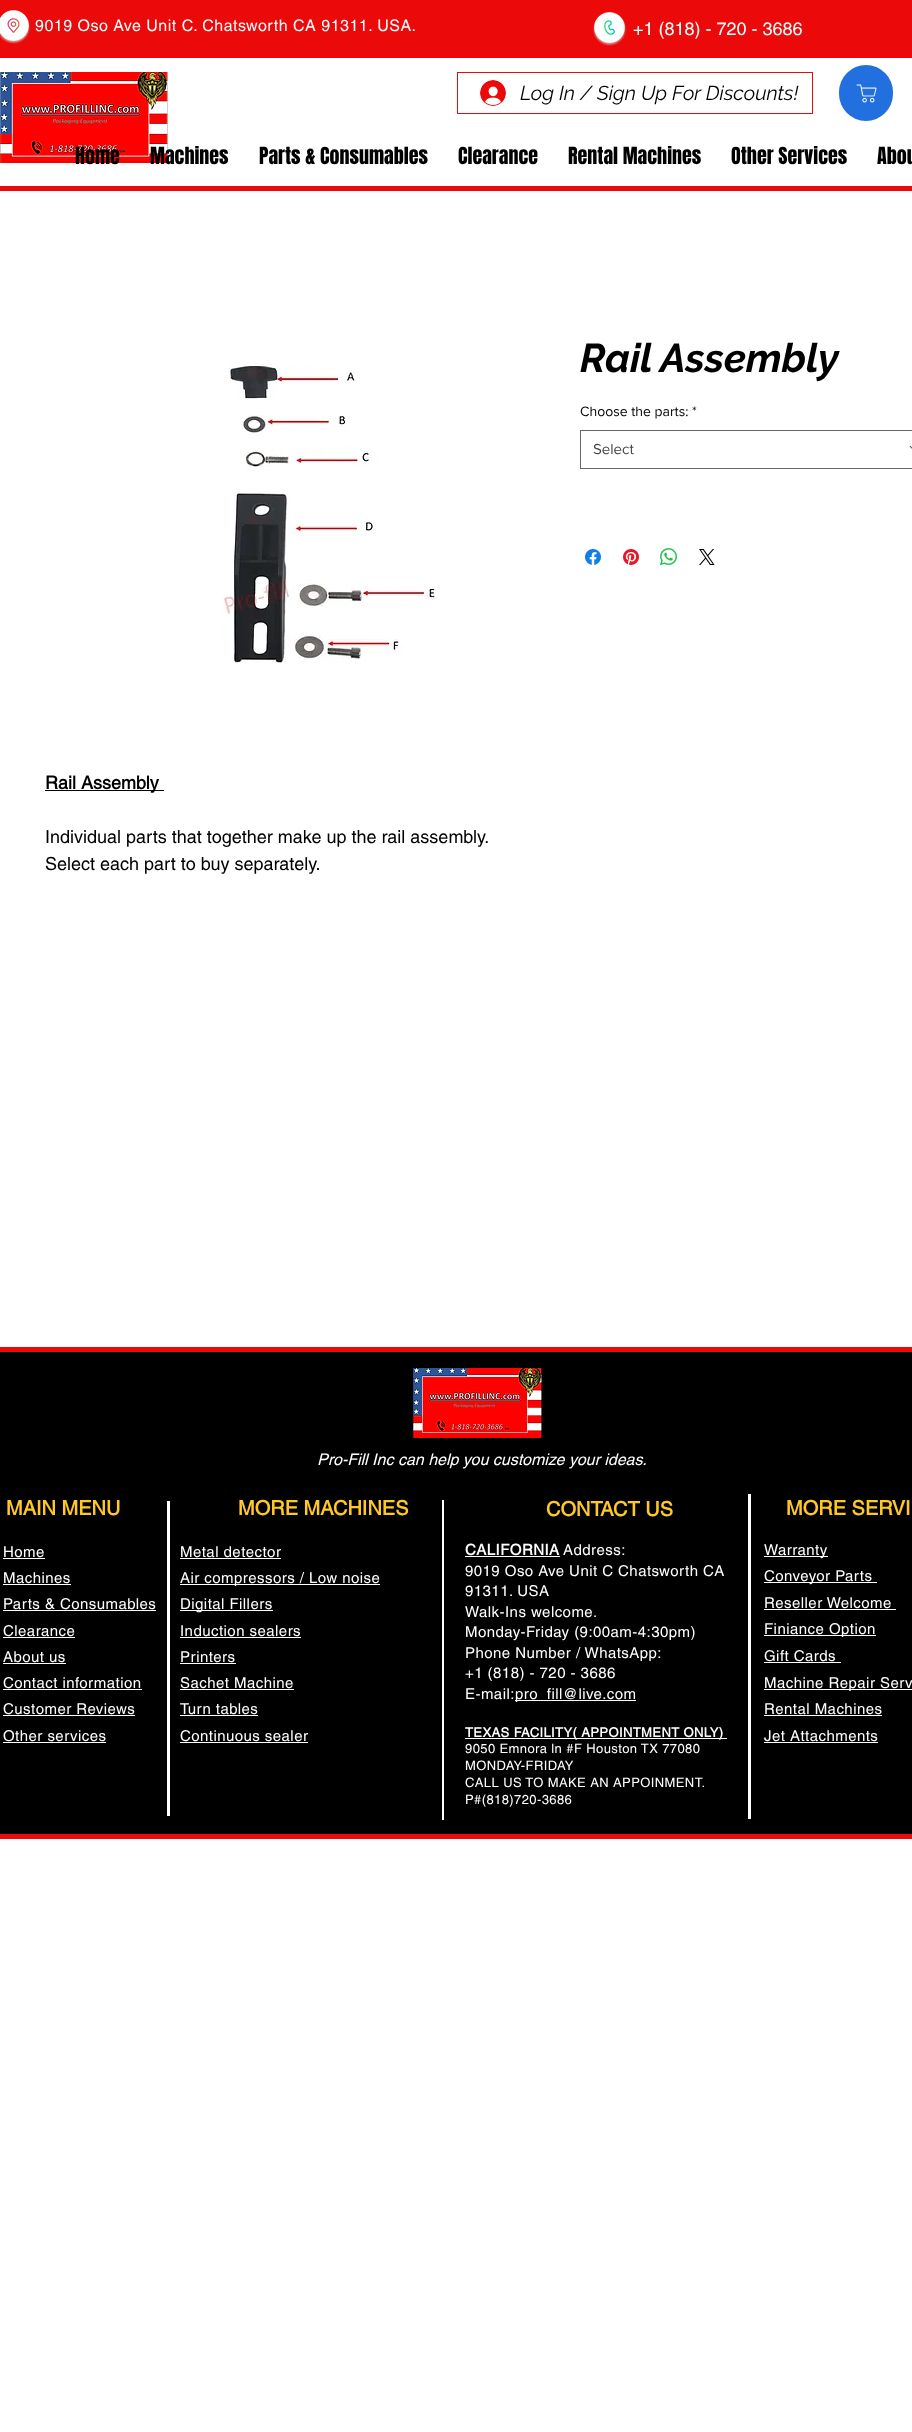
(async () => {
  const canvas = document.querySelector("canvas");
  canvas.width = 912;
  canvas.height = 2432;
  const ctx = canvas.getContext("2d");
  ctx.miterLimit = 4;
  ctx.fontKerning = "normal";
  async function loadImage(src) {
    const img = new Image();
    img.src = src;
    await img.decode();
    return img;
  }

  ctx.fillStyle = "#ffffff";
  ctx.fillRect(0, 0, 912, 2432);
  ctx.fillStyle = "#eb0909";
  ctx.fillRect(0, 0, 912, 58);
  ctx.drawImage(await loadImage("img/1.png"), 0, 10, 31, 34);
  ctx.drawImage(await loadImage("img/2.png"), 592, 12, 35, 34);
  ctx.drawImage(await loadImage("img/3.png"), 0, 72, 168, 91);
  ctx.strokeStyle = "#eb0909";
  ctx.strokeRect(457.5, 72.5, 355, 41);
  ctx.drawImage(await loadImage("img/4.png"), 480, 80, 26, 26);
  ctx.fillStyle = "#2270df";
  ctx.beginPath();
  ctx.roundRect(839, 65, 54, 56, 27);
  ctx.fill();
  ctx.drawImage(await loadImage("img/5.png"), 856, 84, 21, 19);
  ctx.fillStyle = "#eb0909";
  ctx.fillRect(0, 186, 912, 5);
  ctx.strokeStyle = "#666666";
  ctx.strokeRect(580.5, 430.5, 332, 38);
  ctx.drawImage(await loadImage("img/6.png"), 909, 445, 3, 4);
  ctx.drawImage(await loadImage("img/7.png"), 585, 549, 16, 16);
  ctx.drawImage(await loadImage("img/8.png"), 623, 549, 16, 16);
  ctx.drawImage(await loadImage("img/9.png"), 660, 548, 17, 17);
  ctx.drawImage(await loadImage("img/10.png"), 699, 549, 16, 16);
  ctx.drawImage(await loadImage("img/11.png"), 222, 363, 216, 300);
  for (const [x, y, w, h, color] of [
    [45, 790, 119, 1, "#000000"],
    [0, 1352, 912, 482, "#000000"],
    [0, 1347, 912, 5, "#eb0909"],
    [0, 1834, 912, 5, "#eb0909"],
  ]) {
    ctx.fillStyle = color;
    ctx.fillRect(x, y, w, h);
  }
  ctx.drawImage(await loadImage("img/12.png"), 413, 1368, 129, 70);
  for (const [x, y, w, h, color] of [
    [167, 1501, 3, 315, "#ffffff"],
    [442, 1500, 2, 320, "#ffffff"],
    [748, 1494, 3, 325, "#ffffff"],
    [3, 1558, 42, 1, "#ffffff"],
    [180, 1558, 101, 1, "#ffffff"],
    [465, 1556, 95, 1, "#ffffff"],
    [515, 1700, 121, 1, "#ffffff"],
    [465, 1738, 262, 1, "#ffffff"],
    [764, 1556, 64, 1, "#ffffff"],
    [3, 1584, 68, 1, "#ffffff"],
    [180, 1584, 200, 1, "#ffffff"],
    [764, 1582, 113, 1, "#ffffff"],
    [3, 1610, 153, 1, "#ffffff"],
    [180, 1610, 93, 1, "#ffffff"],
    [764, 1609, 132, 1, "#ffffff"],
    [3, 1637, 72, 1, "#ffffff"],
    [180, 1637, 121, 1, "#ffffff"],
    [764, 1635, 112, 1, "#ffffff"],
    [3, 1663, 63, 1, "#ffffff"],
    [180, 1663, 56, 1, "#ffffff"],
    [764, 1662, 77, 1, "#ffffff"],
    [3, 1689, 139, 1, "#ffffff"],
    [180, 1689, 114, 1, "#ffffff"],
    [764, 1689, 148, 1, "#ffffff"],
    [3, 1715, 132, 1, "#ffffff"],
    [180, 1715, 78, 1, "#ffffff"],
    [764, 1715, 118, 1, "#ffffff"],
    [3, 1742, 103, 1, "#ffffff"],
    [180, 1742, 128, 1, "#ffffff"],
    [764, 1742, 114, 1, "#ffffff"],
  ]) {
    ctx.fillStyle = color;
    ctx.fillRect(x, y, w, h);
  }
  ctx.letterSpacing = "0.5px";
  ctx.font = "16px helvetica";
  ctx.fillText("9019 Oso Ave Unit C. Chatsworth CA 91311. USA.", 35, 31);
  ctx.letterSpacing = "0px";
  ctx.font = "18px helvetica";
  ctx.fillText("+1 (818) - 720 - 3686", 633, 35);
  ctx.font = "italic 20px Raleway";
  ctx.fillStyle = "#000000";
  ctx.fillText("Log In / Sign Up For Discounts!", 520, 100);
  ctx.font = "20px Anton";
  for (const [text, x, y] of [
    ["Home", 75, 164],
    ["Machines", 150, 164],
    ["Parts & Consumables", 259, 164],
    ["Clearance", 458, 164],
    ["Rental Machines", 568, 164],
    ["Other Services", 731, 164],
    ["Abou", 877, 164],
  ]) {
    ctx.fillText(text, x, y);
  }
  ctx.font = "italic bold 40px Raleway";
  ctx.fillText("Rail Assembly", 580, 372);
  ctx.font = "14px 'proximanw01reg'";
  ctx.fillText("Choose the parts:", 580, 416);
  ctx.fillText("*", 692, 416);
  ctx.font = "15px 'proximanw01reg'";
  ctx.fillStyle = "#444444";
  ctx.fillText("Select", 593, 454);
  ctx.font = "bold 18px helvetica";
  ctx.fillStyle = "#000000";
  ctx.fillText("Rail Assembly", 45, 789);
  ctx.font = "18px helvetica";
  ctx.fillText("Individual parts that together make up the rail assembly.", 45, 843);
  ctx.fillText("Select each part to buy separately.", 45, 870);
  ctx.font = "italic 16px helvetica";
  ctx.fillStyle = "#ffffff";
  ctx.fillText("Pro-Fill Inc can help you customize your ideas.", 317, 1465);
  ctx.font = "bold 20px helvetica";
  ctx.fillStyle = "#ffc824";
  for (const [text, x, y] of [
    ["MAIN MENU", 6, 1515],
    ["MORE MACHINES", 238, 1515],
    ["MORE SERVI", 786, 1515],
    ["CONTACT US", 546, 1516],
  ]) {
    ctx.fillText(text, x, y);
  }
  ctx.letterSpacing = "0.45px";
  ctx.font = "15px helvetica";
  ctx.fillStyle = "#ffffff";
  ctx.fillText("Home", 3, 1557);
  ctx.fillText("Metal detector", 180, 1557);
  ctx.font = "bold 15px helvetica";
  ctx.fillText("CALIFORNIA", 465, 1555);
  ctx.font = "15px helvetica";
  for (const [text, x, y] of [
    ["Address:", 563, 1555],
    ["9019 Oso Ave Unit C Chatsworth CA", 465, 1576],
    ["91311. USA", 465, 1596],
    ["Walk-Ins welcome.", 465, 1617],
    ["Monday-Friday (9:00am-4:30pm)", 465, 1637],
    ["Phone Number / WhatsApp:", 465, 1658],
    ["+1 (818) - 720 - 3686", 465, 1678],
    ["E-mail:", 465, 1699],
    ["pro_fill@live.com", 515, 1699],
  ]) {
    ctx.fillText(text, x, y);
  }
  ctx.letterSpacing = "0.4px";
  ctx.font = "bold 13px helvetica";
  ctx.fillText("TEXAS FACILITY( APPOINTMENT ONLY)", 465, 1737);
  ctx.font = "13px helvetica";
  for (const [text, x, y] of [
    ["9050 Emnora ln #F Houston TX 77080", 465, 1753],
    ["MONDAY-FRIDAY", 465, 1770],
    ["CALL US TO MAKE AN APPOINMENT.", 465, 1787],
    ["P#(818)720-3686", 465, 1804],
  ]) {
    ctx.fillText(text, x, y);
  }
  ctx.letterSpacing = "0.45px";
  ctx.font = "15px helvetica";
  for (const [text, x, y] of [
    ["Warranty", 764, 1555],
    ["Machines", 3, 1583],
    ["Air compressors / Low noise", 180, 1583],
    ["Conveyor Parts", 764, 1581],
    ["Parts & Consumables", 3, 1609],
    ["Digital Fillers", 180, 1609],
    ["Reseller Welcome", 764, 1608],
    ["Clearance", 3, 1636],
    ["Induction sealers", 180, 1636],
    ["Finiance Option", 764, 1634],
    ["About us", 3, 1662],
    ["Printers", 180, 1662],
    ["Gift Cards", 764, 1661],
    ["Contact information", 3, 1688],
    ["Sachet Machine", 180, 1688],
    ["Machine Repair Serv", 764, 1688],
    ["Customer Reviews", 3, 1714],
    ["Turn tables", 180, 1714],
    ["Rental Machines", 764, 1714],
    ["Other services", 3, 1741],
    ["Continuous sealer", 180, 1741],
    ["Jet Attachments", 764, 1741],
  ]) {
    ctx.fillText(text, x, y);
  }
})();
